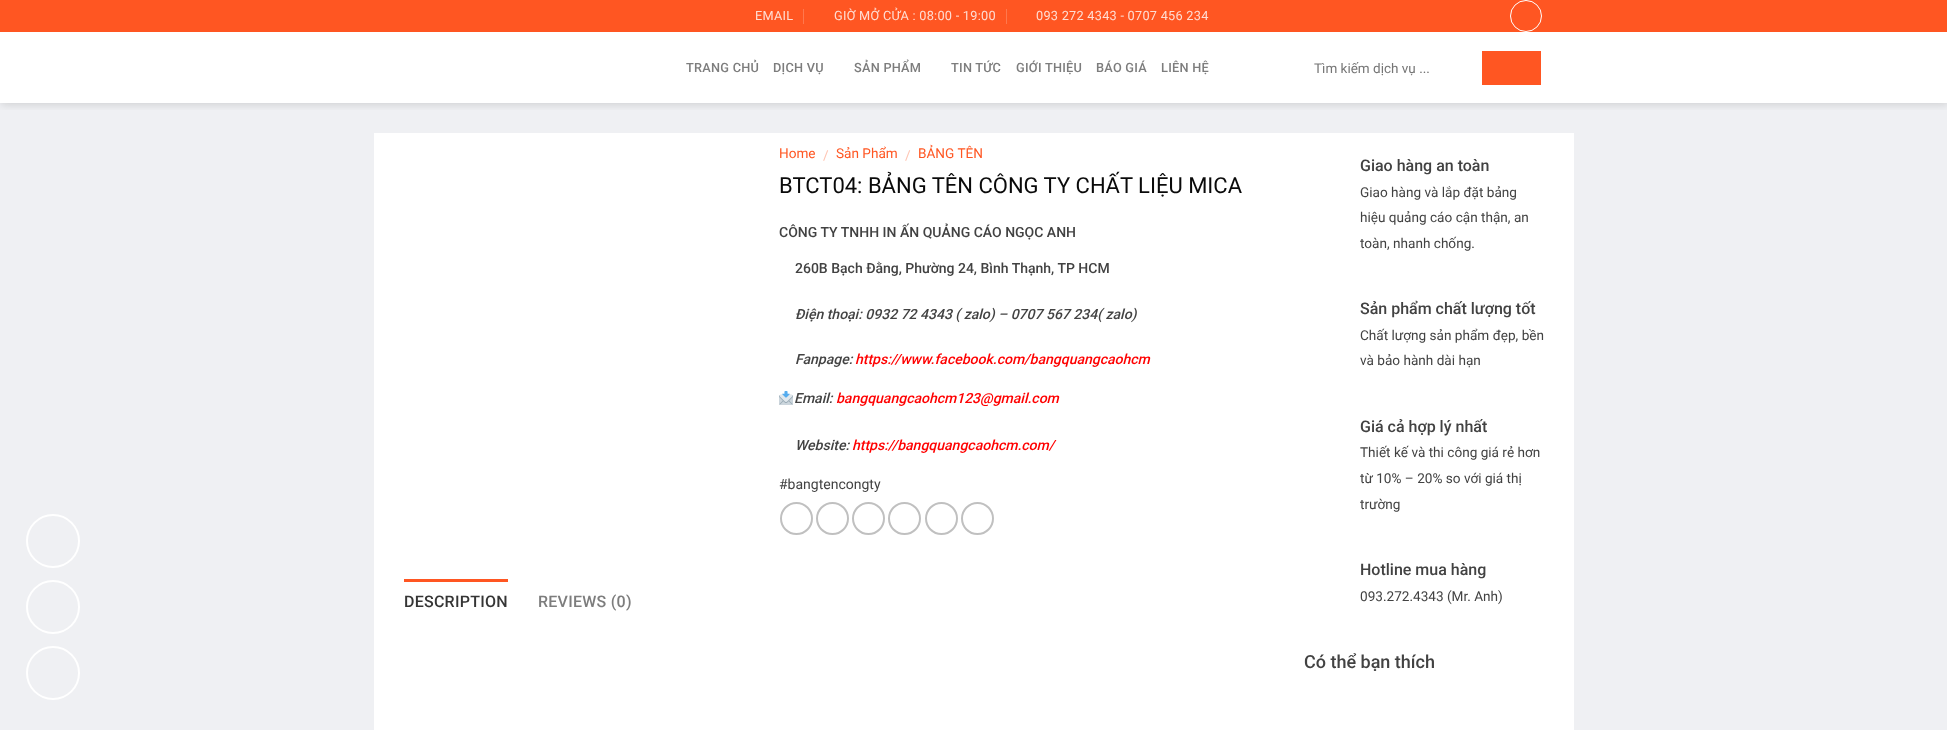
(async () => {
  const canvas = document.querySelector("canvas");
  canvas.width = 1947;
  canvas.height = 730;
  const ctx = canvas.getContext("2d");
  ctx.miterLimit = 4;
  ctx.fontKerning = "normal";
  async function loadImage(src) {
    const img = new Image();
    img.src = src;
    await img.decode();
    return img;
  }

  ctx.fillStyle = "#ffffff";
  ctx.fillRect(0, 0, 1947, 730);
  ctx.fillStyle = "#eff0f3";
  ctx.fillRect(0, 103, 1947, 627);
  ctx.beginPath();
  ctx.arc(53, 541, 26, 0, Math.PI * 2);
  ctx.strokeStyle = "#ffffff";
  ctx.lineWidth = 2;
  ctx.stroke();
  ctx.beginPath();
  ctx.arc(53, 607, 26, 0, Math.PI * 2);
  ctx.stroke();
  ctx.beginPath();
  ctx.arc(53, 673, 26, 0, Math.PI * 2);
  ctx.stroke();
  ctx.save();
  ctx.beginPath();
  ctx.rect(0, 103, 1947, 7);
  ctx.clip();
  ctx.fillStyle = "rgba(0, 0, 0, 0.15)";
  ctx.filter = "blur(5px)";
  ctx.beginPath();
  ctx.rect(1, 1, 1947, 103);
  ctx.fill();
  ctx.filter = "none";
  ctx.restore();
  for (const [x, y, w, h, color] of [
    [0, 0, 1947, 32, "#ff5622"],
    [803, 9, 1, 15, "#ff784e"],
    [1006, 9, 1, 15, "#ff784e"],
  ]) {
    ctx.fillStyle = color;
    ctx.fillRect(x, y, w, h);
  }
  ctx.beginPath();
  ctx.arc(1526, 16, 15.5, 0, Math.PI * 2);
  ctx.lineWidth = 1;
  ctx.stroke();
  ctx.fillStyle = "#ff5622";
  ctx.beginPath();
  ctx.roundRect(1480.5, 49.5, 62, 37, [0, 1.5, 1.5, 0]);
  ctx.fill();
  ctx.lineWidth = 3;
  ctx.stroke();
  ctx.fillStyle = "#ffffff";
  ctx.fillRect(374, 133, 1200, 597);
  ctx.drawImage(await loadImage("img/1.png"), 779, 391, 14, 14);
  ctx.beginPath();
  ctx.arc(796.5, 518.5, 15.5, 0, Math.PI * 2);
  ctx.strokeStyle = "#c0c0c0";
  ctx.lineWidth = 2;
  ctx.stroke();
  ctx.beginPath();
  ctx.arc(832.5, 518.5, 15.5, 0, Math.PI * 2);
  ctx.stroke();
  ctx.beginPath();
  ctx.arc(868.5, 518.5, 15.5, 0, Math.PI * 2);
  ctx.stroke();
  ctx.beginPath();
  ctx.arc(904.5, 518.5, 15.5, 0, Math.PI * 2);
  ctx.stroke();
  ctx.beginPath();
  ctx.arc(941.5, 518.5, 15.5, 0, Math.PI * 2);
  ctx.stroke();
  ctx.beginPath();
  ctx.arc(977.5, 518.5, 15.5, 0, Math.PI * 2);
  ctx.stroke();
  ctx.fillStyle = "#ff5622";
  ctx.fillRect(404, 579, 104, 3);
  ctx.letterSpacing = "0.25px";
  ctx.font = "12.75px Roboto";
  ctx.fillStyle = "#ffddd3";
  for (const [text, x, y] of [
    ["EMAIL", 755, 20],
    ["GIỜ MỞ CỬA : 08:00 - 19:00", 834, 20],
    ["093 272 4343 - 0707 456 234", 1036, 20],
  ]) {
    ctx.fillText(text, x, y);
  }
  ctx.font = "500 12.75px Roboto";
  ctx.fillStyle = "#7d7d7d";
  for (const [text, x, y] of [
    ["TRANG CHỦ", 686, 72],
    ["DỊCH VỤ", 773, 72],
    ["SẢN PHẨM", 854, 72],
    ["TIN TỨC", 951, 72],
    ["GIỚI THIỆU", 1016, 72],
    ["BÁO GIÁ", 1096, 72],
    ["LIÊN HỆ", 1161, 72],
  ]) {
    ctx.fillText(text, x, y);
  }
  ctx.letterSpacing = "0px";
  ctx.font = "13.5px Roboto";
  ctx.fillStyle = "#757575";
  ctx.fillText("Tìm kiếm dịch vụ ...", 1314, 73);
  ctx.font = "13.6px Roboto";
  ctx.fillStyle = "#ff5622";
  ctx.fillText("Home", 779, 158);
  ctx.fillStyle = "#ffc4b2";
  ctx.fillText("/", 823, 160);
  ctx.fillStyle = "#ff5622";
  ctx.fillText("Sản Phẩm", 836, 158);
  ctx.fillStyle = "#ffc4b2";
  ctx.fillText("/", 905, 160);
  ctx.fillStyle = "#ff5622";
  ctx.fillText("BẢNG TÊN", 918, 158);
  ctx.font = "22px Roboto";
  ctx.fillStyle = "#0a0a0a";
  ctx.fillText("BTCT04: BẢNG TÊN CÔNG TY CHẤT LIỆU MICA", 779, 193);
  ctx.font = "500 14px Roboto";
  ctx.fillStyle = "#424242";
  ctx.fillText("CÔNG TY TNHH IN ẤN QUẢNG CÁO NGỌC ANH", 779, 237);
  ctx.fillText("260B Bạch Đằng, Phường 24, Bình Thạnh, TP HCM", 795, 273);
  ctx.font = "italic 500 14px Roboto";
  ctx.fillText("Điện thoại: 0932 72 4343 ( zalo) – 0707 567 234( zalo)", 795, 319);
  ctx.fillText("Fanpage:", 795, 364);
  ctx.fillStyle = "#ff0000";
  ctx.fillText("https://www.facebook.com/bangquangcaohcm", 855, 364);
  ctx.fillStyle = "#424242";
  ctx.fillText("Email:", 794, 403);
  ctx.fillStyle = "#ff0000";
  ctx.fillText("bangquangcaohcm123@gmail.com", 836, 403);
  ctx.fillStyle = "#424242";
  ctx.fillText("Website:", 795, 450);
  ctx.fillStyle = "#ff0000";
  ctx.fillText("https://bangquangcaohcm.com/", 852, 450);
  ctx.font = "14px Roboto";
  ctx.fillStyle = "#424242";
  ctx.fillText("#bangtencongty", 779, 489);
  ctx.letterSpacing = "0.25px";
  ctx.font = "500 16px Roboto";
  ctx.fillStyle = "#353535";
  ctx.fillText("DESCRIPTION", 404, 607);
  ctx.fillStyle = "#7d7d7d";
  ctx.fillText("REVIEWS (0)", 538, 607);
  ctx.letterSpacing = "0px";
  ctx.fillStyle = "#424242";
  ctx.fillText("Giao hàng an toàn", 1360, 171);
  ctx.font = "13.6px Roboto";
  for (const [text, x, y] of [
    ["Giao hàng và lắp đặt bảng", 1360, 197],
    ["hiệu quảng cáo cận thận, an", 1360, 222],
    ["toàn, nhanh chống.", 1360, 248],
  ]) {
    ctx.fillText(text, x, y);
  }
  ctx.font = "500 16px Roboto";
  ctx.fillText("Sản phẩm chất lượng tốt", 1360, 314);
  ctx.font = "13.6px Roboto";
  ctx.fillText("Chất lượng sản phẩm đẹp, bền", 1360, 340);
  ctx.fillText("và bảo hành dài hạn", 1360, 365);
  ctx.font = "500 16px Roboto";
  ctx.fillText("Giá cả hợp lý nhất", 1360, 432);
  ctx.font = "13.6px Roboto";
  for (const [text, x, y] of [
    ["Thiết kế và thi công giá rẻ hơn", 1360, 457],
    ["từ 10% – 20% so với giá thị", 1360, 483],
    ["trường", 1360, 509],
  ]) {
    ctx.fillText(text, x, y);
  }
  ctx.font = "500 16px Roboto";
  ctx.fillText("Hotline mua hàng", 1360, 575);
  ctx.font = "13.6px Roboto";
  ctx.fillText("093.272.4343 (Mr. Anh)", 1360, 601);
  ctx.font = "500 18px Roboto";
  ctx.fillText("Có thể bạn thích", 1304, 668);
})();
